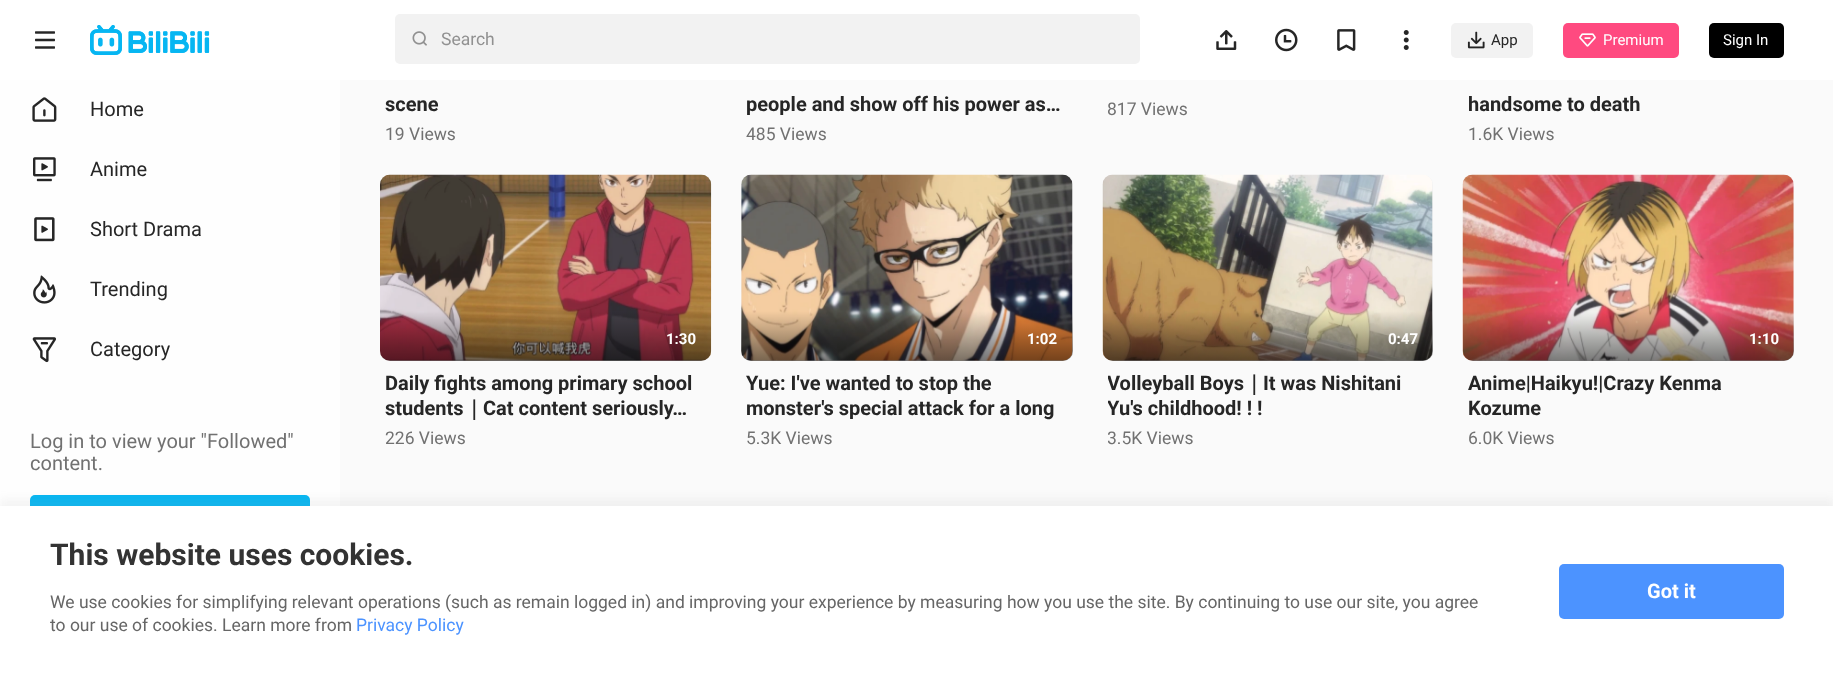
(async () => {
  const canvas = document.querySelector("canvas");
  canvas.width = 1833;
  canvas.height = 676;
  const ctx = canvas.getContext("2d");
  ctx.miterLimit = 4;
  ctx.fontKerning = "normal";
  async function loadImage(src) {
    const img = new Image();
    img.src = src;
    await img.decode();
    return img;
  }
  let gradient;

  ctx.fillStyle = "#fafafa";
  ctx.fillRect(0, 0, 1833, 676);
  ctx.fillStyle = "#ffffff";
  ctx.fillRect(0, 0, 1833, 80);
  ctx.drawImage(await loadImage("img/1.png"), 35, 31, 20, 18);
  ctx.drawImage(await loadImage("img/2.png"), 90, 25, 120, 30);
  ctx.fillStyle = "#f2f2f2";
  ctx.beginPath();
  ctx.roundRect(395, 14, 745, 50, 5);
  ctx.fill();
  ctx.drawImage(await loadImage("img/3.png"), 412, 31, 15, 15);
  ctx.drawImage(await loadImage("img/4.png"), 1216, 30, 21, 20);
  ctx.drawImage(await loadImage("img/5.png"), 1275, 28, 23, 24);
  ctx.drawImage(await loadImage("img/6.png"), 1337, 29, 19, 22);
  ctx.drawImage(await loadImage("img/7.png"), 1403, 30, 6, 20);
  ctx.beginPath();
  ctx.roundRect(1451, 23, 82, 35, 5);
  ctx.fill();
  ctx.drawImage(await loadImage("img/8.png"), 1467, 31, 18, 18);
  ctx.fillStyle = "#ff4a80";
  ctx.beginPath();
  ctx.roundRect(1563, 23, 116, 35, 5);
  ctx.fill();
  ctx.drawImage(await loadImage("img/9.png"), 1579, 33, 17, 14);
  ctx.fillStyle = "#000000";
  ctx.beginPath();
  ctx.roundRect(1709, 23, 75, 35, 5);
  ctx.fill();
  ctx.fillStyle = "#fefefe";
  ctx.fillRect(0, 80, 340, 426);
  ctx.drawImage(await loadImage("img/10.png"), 32, 97, 25, 25);
  ctx.drawImage(await loadImage("img/11.png"), 33, 157, 23, 25);
  ctx.drawImage(await loadImage("img/12.png"), 34, 217, 21, 25);
  ctx.drawImage(await loadImage("img/13.png"), 33, 275, 23, 29);
  ctx.drawImage(await loadImage("img/14.png"), 32, 337, 24, 26);
  ctx.fillStyle = "#06b6f2";
  ctx.beginPath();
  ctx.roundRect(30, 495, 280, 55, 5);
  ctx.fill();
  ctx.fillStyle = "#f2f2f2";
  ctx.beginPath();
  ctx.roundRect(380, 175, 331, 186, 10);
  ctx.fill();
  ctx.drawImage(await loadImage("img/15.png"), 380, 174, 332, 187);
  gradient = ctx.createLinearGradient(545, 311, 545, 361);
  gradient.addColorStop(0, "rgba(0, 0, 0, 0)");
  gradient.addColorStop(0.57, "rgba(0, 0, 0, 0.3)");
  gradient.addColorStop(0.99, "rgba(0, 0, 0, 0.5)");
  ctx.fillStyle = gradient;
  ctx.beginPath();
  ctx.roundRect(380, 311, 331, 50, [0, 0, 10, 10]);
  ctx.fill();
  ctx.fillStyle = "#f2f2f2";
  ctx.beginPath();
  ctx.roundRect(741, 175, 332, 186, 10);
  ctx.fill();
  ctx.drawImage(await loadImage("img/16.png"), 741, 174, 332, 187);
  gradient = ctx.createLinearGradient(906, 311, 906, 361);
  gradient.addColorStop(0, "rgba(0, 0, 0, 0)");
  gradient.addColorStop(0.57, "rgba(0, 0, 0, 0.3)");
  gradient.addColorStop(0.99, "rgba(0, 0, 0, 0.5)");
  ctx.fillStyle = gradient;
  ctx.beginPath();
  ctx.roundRect(741, 311, 332, 50, [0, 0, 10, 10]);
  ctx.fill();
  ctx.fillStyle = "#f2f2f2";
  ctx.beginPath();
  ctx.roundRect(1103, 175, 330, 186, 10);
  ctx.fill();
  ctx.drawImage(await loadImage("img/17.png"), 1102, 174, 331, 187);
  gradient = ctx.createLinearGradient(1267, 311, 1267, 361);
  gradient.addColorStop(0, "rgba(0, 0, 0, 0)");
  gradient.addColorStop(0.57, "rgba(0, 0, 0, 0.3)");
  gradient.addColorStop(0.99, "rgba(0, 0, 0, 0.5)");
  ctx.fillStyle = gradient;
  ctx.beginPath();
  ctx.roundRect(1103, 311, 330, 50, [0, 0, 10, 10]);
  ctx.fill();
  ctx.fillStyle = "#f2f2f2";
  ctx.beginPath();
  ctx.roundRect(1463, 175, 331, 186, 10);
  ctx.fill();
  ctx.drawImage(await loadImage("img/18.png"), 1462, 174, 332, 187);
  gradient = ctx.createLinearGradient(1628, 311, 1628, 361);
  gradient.addColorStop(0, "rgba(0, 0, 0, 0)");
  gradient.addColorStop(0.57, "rgba(0, 0, 0, 0.3)");
  gradient.addColorStop(0.99, "rgba(0, 0, 0, 0.5)");
  ctx.fillStyle = gradient;
  ctx.beginPath();
  ctx.roundRect(1463, 311, 331, 50, [0, 0, 10, 10]);
  ctx.fill();
  ctx.fillStyle = "rgba(153, 153, 153, 0.1)";
  ctx.filter = "blur(4px)";
  ctx.beginPath();
  ctx.rect(0, 499, 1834, 170);
  ctx.fill();
  ctx.filter = "none";
  ctx.fillStyle = "#ffffff";
  ctx.fillRect(0, 506, 1833, 170);
  ctx.fillStyle = "#4c93ff";
  ctx.beginPath();
  ctx.roundRect(1559, 564, 225, 55, 5);
  ctx.fill();
  ctx.font = "17.5px Roboto";
  ctx.fillStyle = "#919191";
  ctx.fillText("Search", 441, 45);
  ctx.font = "15px Roboto";
  ctx.fillStyle = "#262626";
  ctx.fillText("App", 1491, 45);
  ctx.fillStyle = "#ffffff";
  ctx.fillText("Premium", 1603, 45);
  ctx.fillText("Sign In", 1723, 45);
  ctx.font = "20px Roboto";
  ctx.fillStyle = "#262626";
  for (const [text, x, y] of [
    ["Home", 90, 116],
    ["Anime", 90, 176],
    ["Short Drama", 90, 236],
    ["Trending", 90, 296],
    ["Category", 90, 356],
  ]) {
    ctx.fillText(text, x, y);
  }
  ctx.fillStyle = "#717171";
  ctx.fillText("Log in to view your \"Followed\"", 30, 448);
  ctx.fillText("content.", 30, 470);
  ctx.font = "bold 20px Roboto";
  ctx.fillStyle = "#262626";
  ctx.fillText("scene", 385, 111);
  ctx.font = "17.5px Roboto";
  ctx.fillStyle = "#717171";
  ctx.fillText("19 Views", 385, 140);
  ctx.font = "bold 20px Roboto";
  ctx.fillStyle = "#262626";
  ctx.fillText("people and show off his power as…", 746, 111);
  ctx.font = "17.5px Roboto";
  ctx.fillStyle = "#717171";
  ctx.fillText("485 Views", 746, 140);
  ctx.fillText("817 Views", 1107, 115);
  ctx.font = "bold 20px Roboto";
  ctx.fillStyle = "#262626";
  ctx.fillText("handsome to death", 1468, 111);
  ctx.font = "17.5px Roboto";
  ctx.fillStyle = "#717171";
  ctx.fillText("1.6K Views", 1468, 140);
  ctx.font = "bold 15px Roboto";
  ctx.fillStyle = "#ffffff";
  ctx.fillText("1:30", 666, 344);
  ctx.font = "bold 20px Roboto";
  ctx.fillStyle = "#262626";
  ctx.fillText("Daily fights among primary school", 385, 390);
  ctx.fillText("students", 385, 415);
  ctx.font = "bold 20px WenQuanYi Zen Hei";
  ctx.fillText("｜", 464, 415);
  ctx.font = "bold 20px Roboto";
  ctx.fillText("Cat content seriously…", 483, 415);
  ctx.font = "17.5px Roboto";
  ctx.fillStyle = "#717171";
  ctx.fillText("226 Views", 385, 444);
  ctx.font = "bold 15px Roboto";
  ctx.fillStyle = "#ffffff";
  ctx.fillText("1:02", 1027, 344);
  ctx.font = "bold 20px Roboto";
  ctx.fillStyle = "#262626";
  ctx.fillText("Yue: I've wanted to stop the", 746, 390);
  ctx.fillText("monster's special attack for a long", 746, 415);
  ctx.font = "17.5px Roboto";
  ctx.fillStyle = "#717171";
  ctx.fillText("5.3K Views", 746, 444);
  ctx.font = "bold 15px Roboto";
  ctx.fillStyle = "#ffffff";
  ctx.fillText("0:47", 1388, 344);
  ctx.save();
  ctx.beginPath();
  ctx.rect(1108, 371, 320, 50);
  ctx.clip();
  ctx.font = "bold 20px Roboto";
  ctx.fillStyle = "#262626";
  ctx.fillText("Volleyball Boys", 1107, 390);
  ctx.restore();
  ctx.font = "bold 20px WenQuanYi Zen Hei";
  ctx.fillStyle = "#262626";
  ctx.fillText("｜", 1244, 390);
  ctx.font = "bold 20px Roboto";
  ctx.fillText("It was Nishitani", 1263, 390);
  ctx.save();
  ctx.beginPath();
  ctx.rect(1108, 371, 320, 50);
  ctx.clip();
  ctx.fillText("Yu's childhood! ! !", 1107, 415);
  ctx.restore();
  ctx.save();
  ctx.beginPath();
  ctx.rect(1108, 426, 86, 23);
  ctx.clip();
  ctx.font = "17.5px Roboto";
  ctx.fillStyle = "#717171";
  ctx.fillText("3.5K Views", 1107, 444);
  ctx.restore();
  ctx.font = "bold 15px Roboto";
  ctx.fillStyle = "#ffffff";
  ctx.fillText("1:10", 1749, 344);
  ctx.font = "bold 20px Roboto";
  ctx.fillStyle = "#262626";
  ctx.fillText("Anime|Haikyu!|Crazy Kenma", 1468, 390);
  ctx.fillText("Kozume", 1468, 415);
  ctx.font = "17.5px Roboto";
  ctx.fillStyle = "#717171";
  ctx.fillText("6.0K Views", 1468, 444);
  ctx.font = "bold 30px Roboto";
  ctx.fillStyle = "#333333";
  ctx.fillText("This website uses cookies.", 50, 565);
  ctx.font = "17.5px Roboto";
  ctx.fillStyle = "#666666";
  ctx.fillText("We use cookies for simplifying relevant operations (such as remain logged in) and improving your experience by measuring how you use the site. By continuing to use our site, you agree", 50, 608);
  ctx.fillText("to our use of cookies. Learn more from", 50, 631);
  ctx.fillStyle = "#4c93ff";
  ctx.fillText("Privacy Policy", 356, 631);
  ctx.font = "bold 20px Roboto";
  ctx.fillStyle = "#ffffff";
  ctx.fillText("Got it", 1647, 598);
})();
